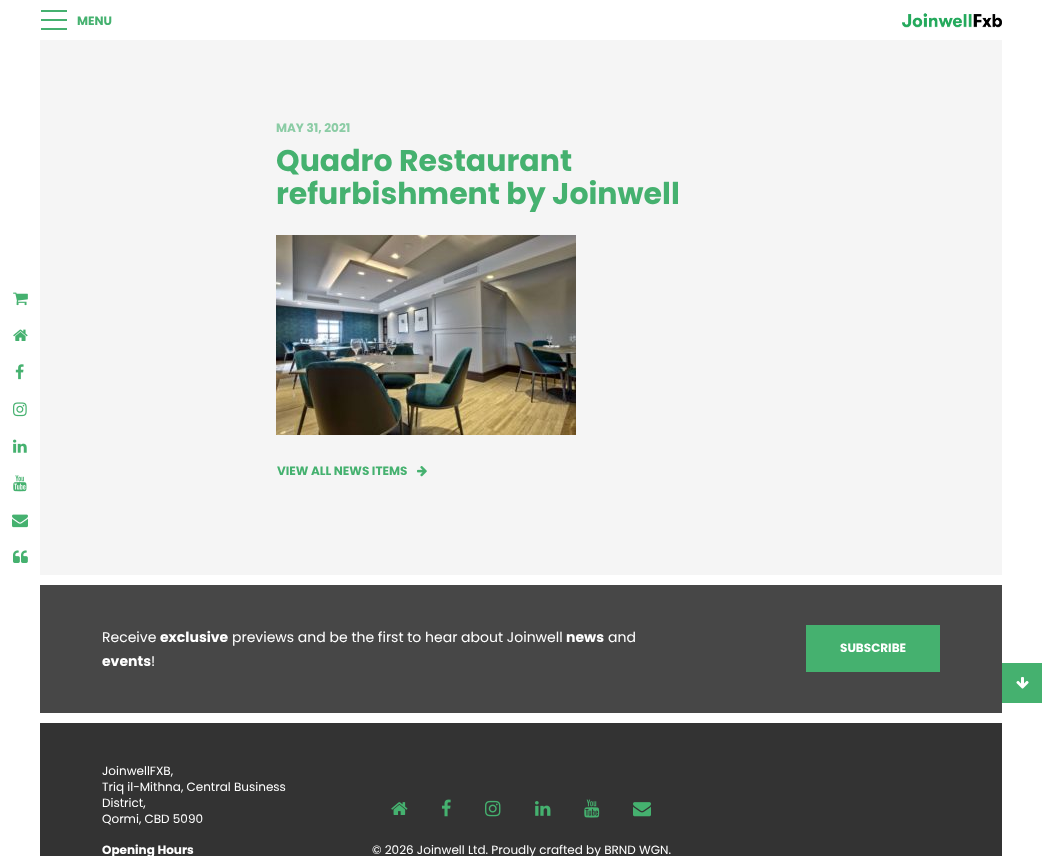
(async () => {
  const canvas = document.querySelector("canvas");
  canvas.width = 1042;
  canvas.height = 856;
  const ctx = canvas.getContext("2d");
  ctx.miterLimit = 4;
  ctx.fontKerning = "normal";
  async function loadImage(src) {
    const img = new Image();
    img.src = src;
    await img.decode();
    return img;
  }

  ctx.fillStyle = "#ffffff";
  ctx.fillRect(0, 0, 1042, 856);
  for (const [x, y, w, h, color] of [
    [41, 10, 26, 2, "#45b16f"],
    [41, 19, 26, 2, "#45b16f"],
    [41, 28, 26, 2, "#45b16f"],
  ]) {
    ctx.fillStyle = color;
    ctx.fillRect(x, y, w, h);
  }
  ctx.drawImage(await loadImage("img/1.png"), 902, 13, 100, 15);
  ctx.drawImage(await loadImage("img/2.png"), 13, 292, 15, 14);
  ctx.drawImage(await loadImage("img/3.png"), 13, 329, 15, 12);
  ctx.drawImage(await loadImage("img/4.png"), 15, 364, 9, 16);
  ctx.drawImage(await loadImage("img/5.png"), 13, 402, 14, 15);
  ctx.drawImage(await loadImage("img/6.png"), 13, 439, 14, 14);
  ctx.drawImage(await loadImage("img/7.png"), 13, 475, 14, 17);
  ctx.drawImage(await loadImage("img/8.png"), 12, 514, 16, 14);
  ctx.drawImage(await loadImage("img/9.png"), 13, 550, 15, 13);
  ctx.fillStyle = "#f5f5f5";
  ctx.fillRect(40, 40, 962, 535);
  ctx.drawImage(await loadImage("img/10.png"), 276, 235, 300, 200);
  ctx.drawImage(await loadImage("img/11.png"), 417, 466, 10, 11);
  for (const [x, y, w, h, color] of [
    [40, 585, 962, 128, "#474747"],
    [806, 625, 134, 47, "#45b16f"],
    [40, 723, 962, 133, "#333333"],
  ]) {
    ctx.fillStyle = color;
    ctx.fillRect(x, y, w, h);
  }
  ctx.drawImage(await loadImage("img/12.png"), 391, 802, 17, 13);
  ctx.drawImage(await loadImage("img/13.png"), 441, 799, 10, 18);
  ctx.drawImage(await loadImage("img/14.png"), 485, 800, 16, 17);
  ctx.drawImage(await loadImage("img/15.png"), 535, 801, 16, 15);
  ctx.drawImage(await loadImage("img/16.png"), 584, 799, 16, 19);
  ctx.drawImage(await loadImage("img/17.png"), 633, 802, 18, 15);
  ctx.fillStyle = "#45b16f";
  ctx.fillRect(1002, 663, 40, 40);
  ctx.drawImage(await loadImage("img/18.png"), 1016, 677, 13, 12);
  ctx.font = "bold 12px Poppins";
  ctx.fillText("MENU", 77, 25);
  ctx.fillStyle = "#8bcca5";
  ctx.fillText("MAY 31, 2021", 276, 132);
  ctx.font = "bold 30px Poppins";
  ctx.fillStyle = "#45b16f";
  ctx.fillText("Quadro Restaurant", 276, 171);
  ctx.fillText("refurbishment by Joinwell", 276, 204);
  ctx.font = "bold 12px Poppins";
  ctx.fillText("VIEW ALL NEWS ITEMS", 277, 475);
  ctx.font = "14px Poppins";
  ctx.fillStyle = "#ffffff";
  ctx.fillText("Receive", 102, 642);
  ctx.font = "bold 14px Poppins";
  ctx.fillText("exclusive", 160, 642);
  ctx.font = "14px Poppins";
  ctx.fillText("previews and be the first to hear about Joinwell", 232, 642);
  ctx.font = "bold 14px Poppins";
  ctx.fillText("news", 566, 642);
  ctx.font = "14px Poppins";
  ctx.fillText("and", 608, 642);
  ctx.font = "bold 14px Poppins";
  ctx.fillText("events", 102, 666);
  ctx.font = "14px Poppins";
  ctx.fillText("!", 151, 666);
  ctx.font = "bold 12px Poppins";
  ctx.fillText("SUBSCRIBE", 840, 652);
  ctx.font = "12px Poppins";
  for (const [text, x, y] of [
    ["JoinwellFXB,", 102, 775],
    ["Triq il-Mithna, Central Business", 102, 791],
    ["District,", 102, 807],
    ["Qormi, CBD 5090", 102, 823],
  ]) {
    ctx.fillText(text, x, y);
  }
  ctx.font = "bold 12px Poppins";
  ctx.fillText("Opening Hours", 102, 854);
  ctx.font = "12px Poppins";
  ctx.fillText("© 2026 Joinwell Ltd. Proudly crafted by BRND WGN.", 372, 854);
})();
